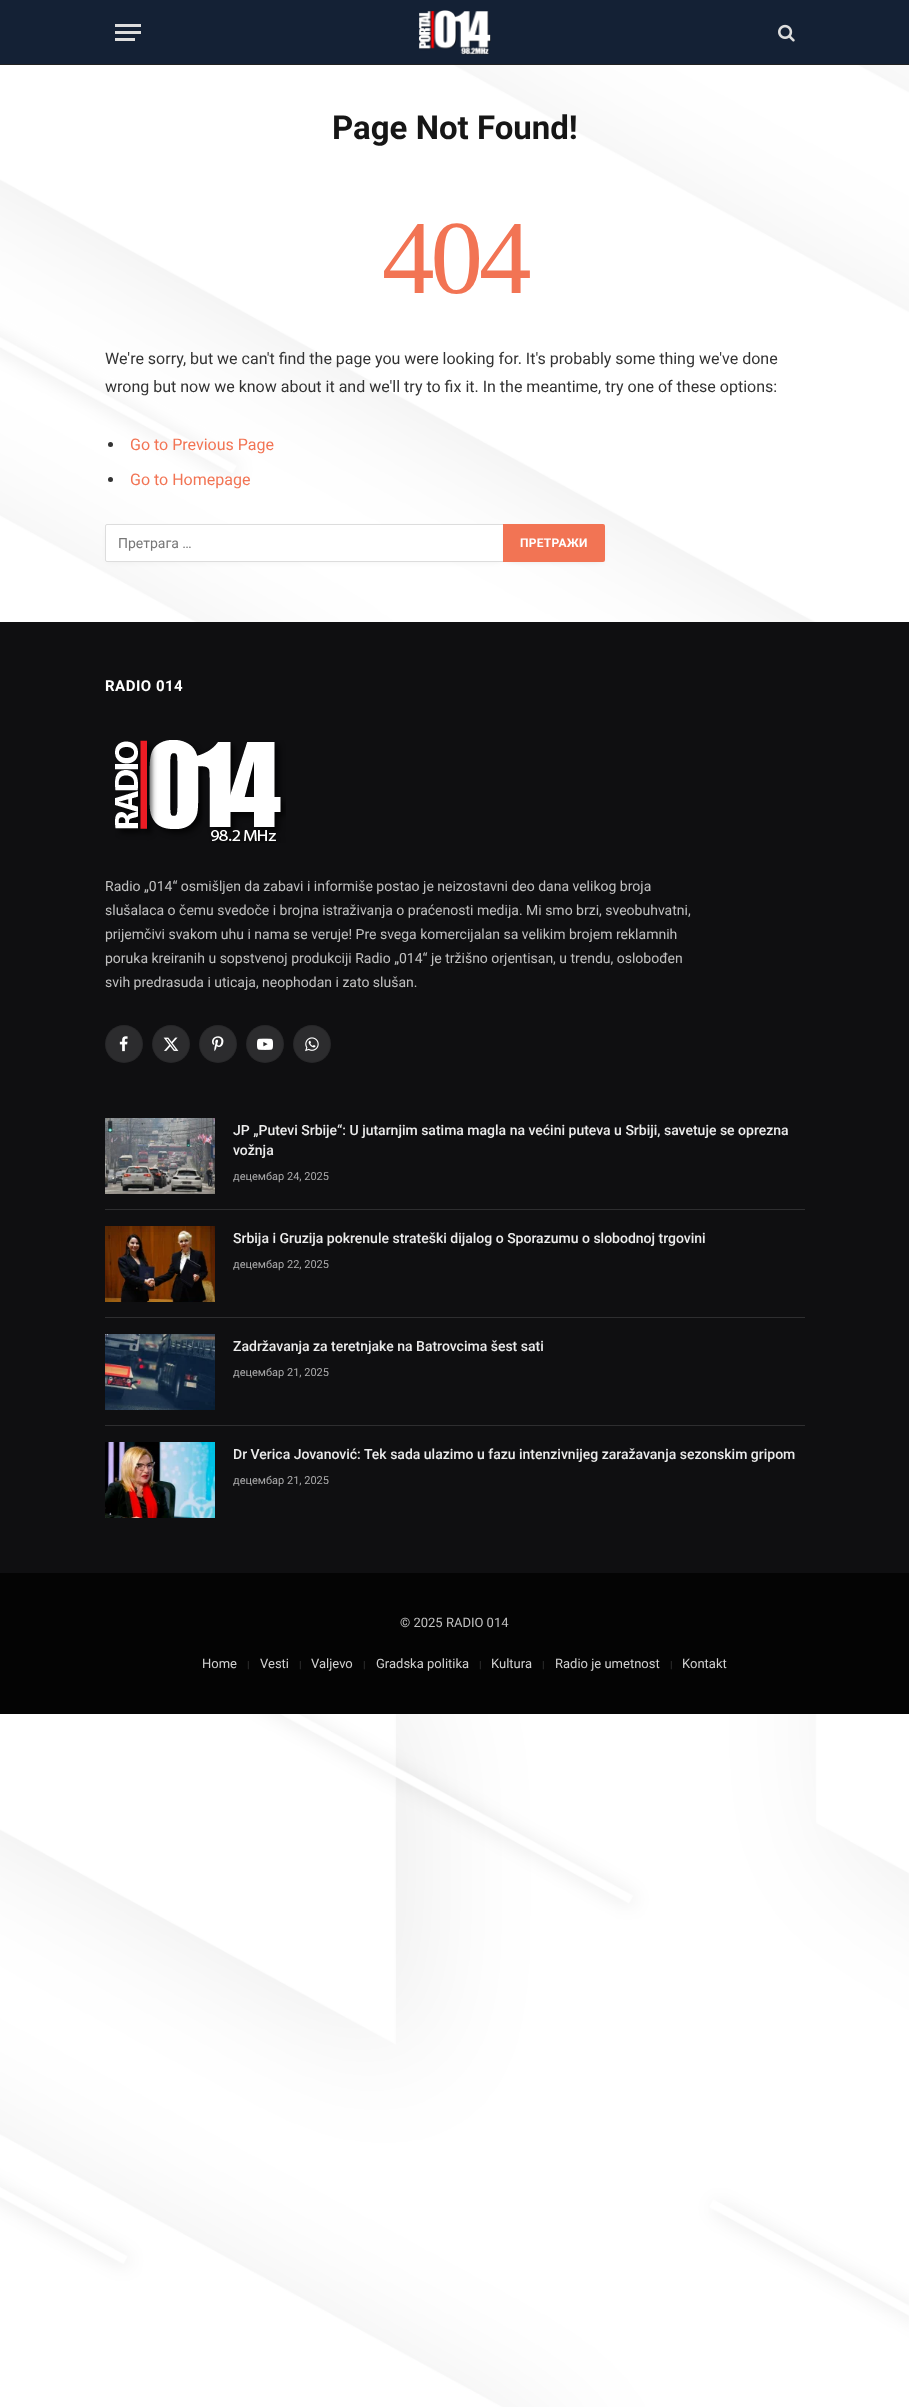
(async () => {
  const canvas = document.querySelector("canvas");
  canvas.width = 909;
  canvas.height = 2407;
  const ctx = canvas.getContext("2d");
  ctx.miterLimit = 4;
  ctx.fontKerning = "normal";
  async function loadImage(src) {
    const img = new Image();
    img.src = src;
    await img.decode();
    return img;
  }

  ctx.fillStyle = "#ffffff";
  ctx.fillRect(0, 0, 909, 2407);
  ctx.drawImage(await loadImage("img/1.png"), 0, 65, 909, 2342);
  for (const [x, y, w, h, color] of [
    [0, 0, 909, 64, "#142135"],
    [0, 64, 909, 1, "#222222"],
    [115, 38, 20, 3, "#dddddd"],
    [115, 24, 26, 3, "#dddddd"],
    [115, 31, 26, 3, "#dddddd"],
  ]) {
    ctx.fillStyle = color;
    ctx.fillRect(x, y, w, h);
  }
  ctx.drawImage(await loadImage("img/2.png"), 418, 10, 73, 45);
  ctx.drawImage(await loadImage("img/3.png"), 778, 24, 17, 18);
  ctx.fillStyle = "#333333";
  ctx.beginPath();
  ctx.arc(110.5, 444.5, 2.5, 0, Math.PI * 2);
  ctx.fill();
  ctx.beginPath();
  ctx.arc(110.5, 479.5, 2.5, 0, Math.PI * 2);
  ctx.fill();
  ctx.fillStyle = "rgba(0, 0, 0, 0.1)";
  ctx.filter = "blur(3.5px)";
  ctx.beginPath();
  ctx.rect(109, 530, 392, 30);
  ctx.fill();
  ctx.filter = "none";
  ctx.fillStyle = "#ffffff";
  ctx.beginPath();
  ctx.roundRect(105.5, 524.5, 399, 37, 1.5);
  ctx.fill();
  ctx.strokeStyle = "#dddddd";
  ctx.stroke();
  ctx.fillStyle = "rgba(0, 0, 0, 0.16)";
  ctx.filter = "blur(3.5px)";
  ctx.beginPath();
  ctx.rect(507, 530, 94, 30);
  ctx.fill();
  ctx.filter = "none";
  ctx.fillStyle = "#f27454";
  ctx.beginPath();
  ctx.roundRect(503, 524, 102, 38, [0, 2, 2, 0]);
  ctx.fill();
  ctx.fillStyle = "#0f0f11";
  ctx.fillRect(0, 622, 909, 951);
  ctx.drawImage(await loadImage("img/4.png"), 115, 740, 171, 103);
  ctx.fillStyle = "#2c2c2e";
  ctx.beginPath();
  ctx.arc(124, 1044, 19, 0, Math.PI * 2);
  ctx.fill();
  ctx.beginPath();
  ctx.arc(124, 1044, 18.5, 0, Math.PI * 2);
  ctx.strokeStyle = "rgba(0, 0, 0, 0.09)";
  ctx.stroke();
  ctx.drawImage(await loadImage("img/5.png"), 119, 1036, 9, 16);
  ctx.beginPath();
  ctx.arc(171, 1044, 19, 0, Math.PI * 2);
  ctx.fill();
  ctx.beginPath();
  ctx.arc(171, 1044, 18.5, 0, Math.PI * 2);
  ctx.stroke();
  ctx.drawImage(await loadImage("img/6.png"), 163, 1037, 16, 14);
  ctx.beginPath();
  ctx.arc(218, 1044, 19, 0, Math.PI * 2);
  ctx.fill();
  ctx.beginPath();
  ctx.arc(218, 1044, 18.5, 0, Math.PI * 2);
  ctx.stroke();
  ctx.drawImage(await loadImage("img/7.png"), 212, 1036, 12, 16);
  ctx.beginPath();
  ctx.arc(265, 1044, 19, 0, Math.PI * 2);
  ctx.fill();
  ctx.beginPath();
  ctx.arc(265, 1044, 18.5, 0, Math.PI * 2);
  ctx.stroke();
  ctx.drawImage(await loadImage("img/8.png"), 257, 1038, 16, 12);
  ctx.beginPath();
  ctx.arc(312, 1044, 19, 0, Math.PI * 2);
  ctx.fill();
  ctx.beginPath();
  ctx.arc(312, 1044, 18.5, 0, Math.PI * 2);
  ctx.stroke();
  ctx.drawImage(await loadImage("img/9.png"), 305, 1037, 14, 15);
  ctx.drawImage(await loadImage("img/10.png"), 105, 1118, 110, 76);
  ctx.fillStyle = "#2e2e30";
  ctx.fillRect(105, 1209, 700, 1);
  ctx.drawImage(await loadImage("img/11.png"), 105, 1226, 110, 76);
  ctx.fillRect(105, 1317, 700, 1);
  ctx.drawImage(await loadImage("img/12.png"), 105, 1334, 110, 76);
  ctx.fillRect(105, 1425, 700, 1);
  ctx.drawImage(await loadImage("img/13.png"), 105, 1442, 110, 76);
  ctx.fillStyle = "#040404";
  ctx.fillRect(0, 1573, 909, 141);
  ctx.font = "bold 33px Roboto";
  ctx.fillStyle = "#161616";
  ctx.fillText("Page Not Found!", 332, 139);
  ctx.letterSpacing = "-4px";
  ctx.font = "105px Liberation Serif";
  ctx.fillStyle = "#f27454";
  ctx.fillText("404", 382, 293);
  ctx.letterSpacing = "0px";
  ctx.font = "16px Roboto";
  ctx.fillStyle = "#333333";
  ctx.fillText("We're sorry, but we can't find the page you were looking for. It's probably some thing we've done", 105, 364);
  ctx.fillText("wrong but now we know about it and we'll try to fix it. In the meantime, try one of these options:", 105, 392);
  ctx.fillStyle = "#f27454";
  ctx.fillText("Go to Previous Page", 130, 450);
  ctx.fillText("Go to Homepage", 130, 485);
  ctx.font = "14px Roboto";
  ctx.fillStyle = "#777777";
  ctx.fillText("Претрага …", 118, 548);
  ctx.letterSpacing = "0.25px";
  ctx.font = "bold 12px Roboto";
  ctx.fillStyle = "#ffffff";
  ctx.fillText("ПРЕТРАЖИ", 520, 547);
  ctx.letterSpacing = "0.5px";
  ctx.font = "bold 15px Roboto";
  ctx.fillText("RADIO 014", 105, 691);
  ctx.letterSpacing = "0px";
  ctx.font = "14px Roboto";
  ctx.fillStyle = "#c0c0c0";
  for (const [text, x, y] of [
    ["Radio „014“ osmišljen da zabavi i informiše postao je neizostavni deo dana velikog broja", 105, 891],
    ["slušalaca o čemu svedoče i brojna istraživanja o praćenosti medija. Mi smo brzi, sveobuhvatni,", 105, 915],
    ["prijemčivi svakom uhu i nama se veruje! Pre svega komercijalan sa velikim brojem reklamnih", 105, 939],
    ["poruka kreiranih u sopstvenoj produkciji Radio „014“ je tržišno orjentisan, u trendu, oslobođen", 105, 963],
    ["svih predrasuda i uticaja, neophodan i zato slušan.", 105, 987],
  ]) {
    ctx.fillText(text, x, y);
  }
  ctx.font = "500 14px Roboto";
  ctx.fillStyle = "#ececec";
  ctx.fillText("JP „Putevi Srbije“: U jutarnjim satima magla na većini puteva u Srbiji, savetuje se oprezna", 233, 1135);
  ctx.fillText("vožnja", 233, 1155);
  ctx.font = "11px Roboto";
  ctx.fillStyle = "#ababac";
  ctx.fillText("децембар 24, 2025", 233, 1180);
  ctx.font = "500 14px Roboto";
  ctx.fillStyle = "#ececec";
  ctx.fillText("Srbija i Gruzija pokrenule strateški dijalog o Sporazumu o slobodnoj trgovini", 233, 1243);
  ctx.font = "11px Roboto";
  ctx.fillStyle = "#ababac";
  ctx.fillText("децембар 22, 2025", 233, 1268);
  ctx.font = "500 14px Roboto";
  ctx.fillStyle = "#ececec";
  ctx.fillText("Zadržavanja za teretnjake na Batrovcima šest sati", 233, 1351);
  ctx.font = "11px Roboto";
  ctx.fillStyle = "#ababac";
  ctx.fillText("децембар 21, 2025", 233, 1376);
  ctx.font = "500 14px Roboto";
  ctx.fillStyle = "#ececec";
  ctx.fillText("Dr Verica Jovanović: Tek sada ulazimo u fazu intenzivnijeg zaražavanja sezonskim gripom", 233, 1459);
  ctx.font = "11px Roboto";
  ctx.fillStyle = "#ababac";
  ctx.fillText("децембар 21, 2025", 233, 1484);
  ctx.font = "13px Roboto";
  ctx.fillStyle = "#c0c0c0";
  ctx.fillText("© 2025 RADIO 014", 400, 1627);
  ctx.fillStyle = "#d1d1d1";
  ctx.fillText("Home", 202, 1668);
  ctx.font = "10px Roboto";
  ctx.fillStyle = "#3b3b3b";
  ctx.fillText("|", 247, 1668);
  ctx.font = "13px Roboto";
  ctx.fillStyle = "#d1d1d1";
  ctx.fillText("Vesti", 260, 1668);
  ctx.font = "10px Roboto";
  ctx.fillStyle = "#3b3b3b";
  ctx.fillText("|", 299, 1668);
  ctx.font = "13px Roboto";
  ctx.fillStyle = "#d1d1d1";
  ctx.fillText("Valjevo", 311, 1668);
  ctx.font = "10px Roboto";
  ctx.fillStyle = "#3b3b3b";
  ctx.fillText("|", 363, 1668);
  ctx.font = "13px Roboto";
  ctx.fillStyle = "#d1d1d1";
  ctx.fillText("Gradska politika", 376, 1668);
  ctx.font = "10px Roboto";
  ctx.fillStyle = "#3b3b3b";
  ctx.fillText("|", 479, 1668);
  ctx.font = "13px Roboto";
  ctx.fillStyle = "#d1d1d1";
  ctx.fillText("Kultura", 491, 1668);
  ctx.font = "10px Roboto";
  ctx.fillStyle = "#3b3b3b";
  ctx.fillText("|", 542, 1668);
  ctx.font = "13px Roboto";
  ctx.fillStyle = "#d1d1d1";
  ctx.fillText("Radio je umetnost", 555, 1668);
  ctx.font = "10px Roboto";
  ctx.fillStyle = "#3b3b3b";
  ctx.fillText("|", 670, 1668);
  ctx.font = "13px Roboto";
  ctx.fillStyle = "#d1d1d1";
  ctx.fillText("Kontakt", 682, 1668);
})();
